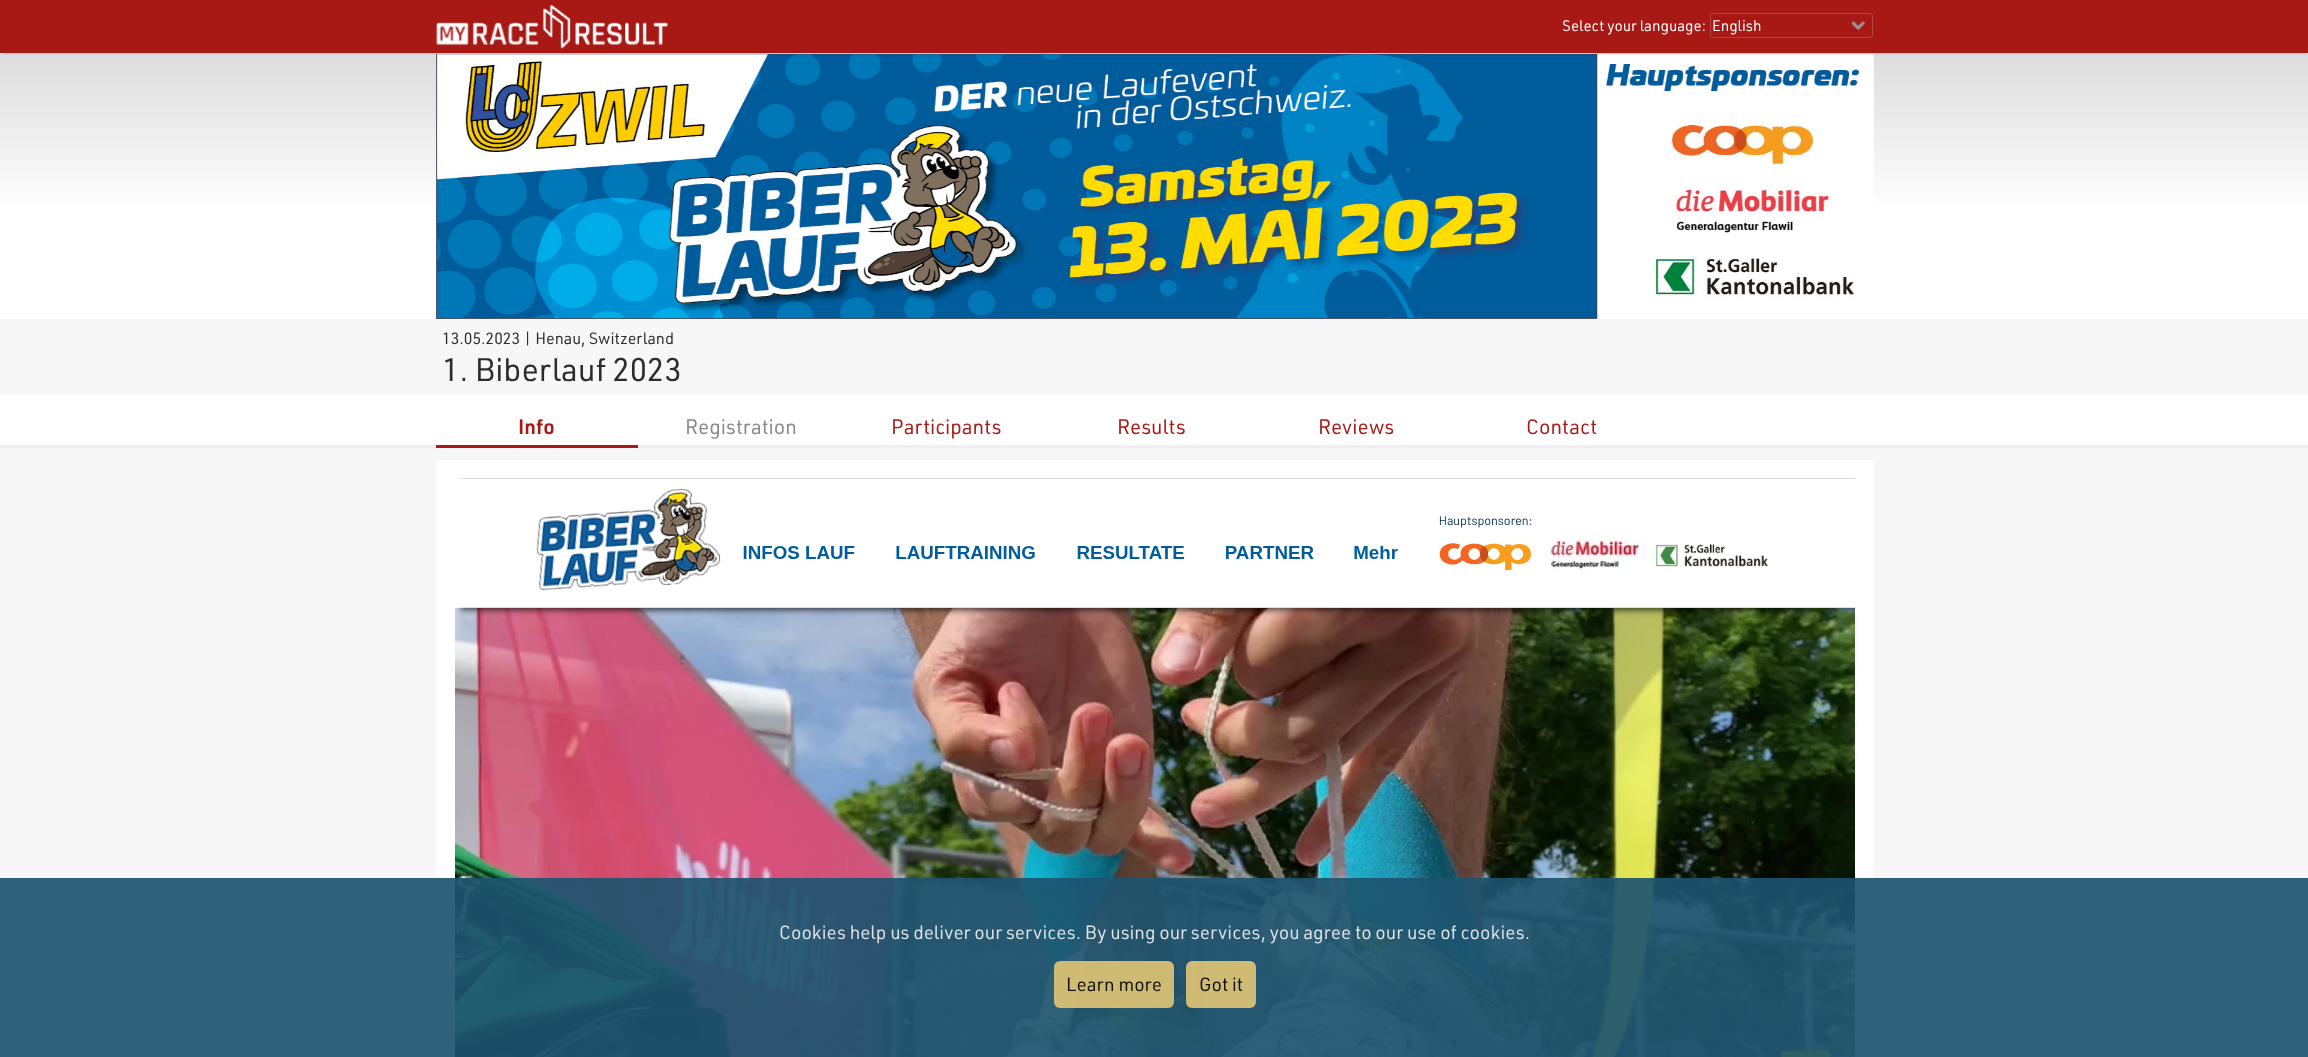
(async () => {
  const canvas = document.querySelector("canvas");
  canvas.width = 2308;
  canvas.height = 1057;
  const ctx = canvas.getContext("2d");
  ctx.miterLimit = 4;
  ctx.fontKerning = "normal";
  async function loadImage(src) {
    const img = new Image();
    img.src = src;
    await img.decode();
    return img;
  }
  let gradient;

  ctx.fillStyle = "#f7f7f7";
  ctx.fillRect(0, 0, 2308, 1057);
  gradient = ctx.createLinearGradient(1154, 319, 1154, 54);
  gradient.addColorStop(0.4, "#ffffff");
  gradient.addColorStop(1, "#dddddd");
  ctx.fillStyle = gradient;
  ctx.fillRect(0, 54, 2308, 265);
  ctx.drawImage(await loadImage("img/3.png"), 436, 54, 1438, 265);
  ctx.fillStyle = "rgba(0, 0, 0, 0.52)";
  ctx.filter = "blur(1px)";
  ctx.beginPath();
  ctx.rect(3, 5, 2303, 48);
  ctx.fill();
  ctx.filter = "none";
  ctx.fillStyle = "#a81815";
  ctx.fillRect(0, 0, 2308, 53);
  ctx.drawImage(await loadImage("img/1.png"), 436, 5, 232, 44);
  ctx.drawImage(await loadImage("img/2.png"), 1851, 21, 15, 10);
  ctx.beginPath();
  ctx.roundRect(1710.5, 13.5, 162, 24, 2);
  ctx.strokeStyle = "#b74340";
  ctx.stroke();
  for (const [x, y, w, h, color] of [
    [0, 395, 2308, 50, "#ffffff"],
    [0, 445, 2308, 3, "#eeeeee"],
    [436, 445, 202, 3, "#a81815"],
    [436, 460, 1438, 597, "#ffffff"],
  ]) {
    ctx.fillStyle = color;
    ctx.fillRect(x, y, w, h);
  }
  ctx.drawImage(await loadImage("img/4.png"), 455, 478, 1400, 579);
  ctx.fillStyle = "rgba(29, 84, 111, 0.92)";
  ctx.fillRect(0, 878, 2308, 179);
  ctx.fillStyle = "rgba(221, 195, 116, 0.92)";
  ctx.beginPath();
  ctx.roundRect(1054, 961, 120, 47, 6);
  ctx.fill();
  ctx.beginPath();
  ctx.roundRect(1186, 961, 70, 47, 6);
  ctx.fill();
  ctx.font = "15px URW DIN";
  ctx.fillStyle = "#ffffff";
  ctx.fillText("Select your language:", 1562, 31);
  ctx.fillText("English", 1712, 31);
  ctx.font = "16px URW DIN";
  ctx.fillStyle = "#2c2c2c";
  ctx.fillText("13.05.2023 | Henau, Switzerland", 442, 344);
  ctx.font = "32px URW DIN";
  ctx.fillText("1. Biberlauf 2023", 442, 381);
  ctx.font = "600 20.5px URW DIN";
  ctx.fillStyle = "#a81815";
  ctx.fillText("Info", 518, 434);
  ctx.font = "20.5px URW DIN";
  ctx.fillStyle = "#888888";
  ctx.fillText("Registration", 685, 434);
  ctx.fillStyle = "#a81815";
  for (const [text, x, y] of [
    ["Participants", 891, 434],
    ["Results", 1117, 434],
    ["Reviews", 1318, 434],
    ["Contact", 1526, 434],
  ]) {
    ctx.fillText(text, x, y);
  }
  ctx.font = "18.75px URW DIN";
  ctx.fillStyle = "#dee2e4";
  ctx.fillText("Cookies help us deliver our services. By using our services, you agree to our use of cookies.", 779, 939);
  ctx.fillStyle = "#100f09";
  ctx.fillText("Learn more", 1066, 991);
  ctx.fillText("Got it", 1199, 991);
})();
